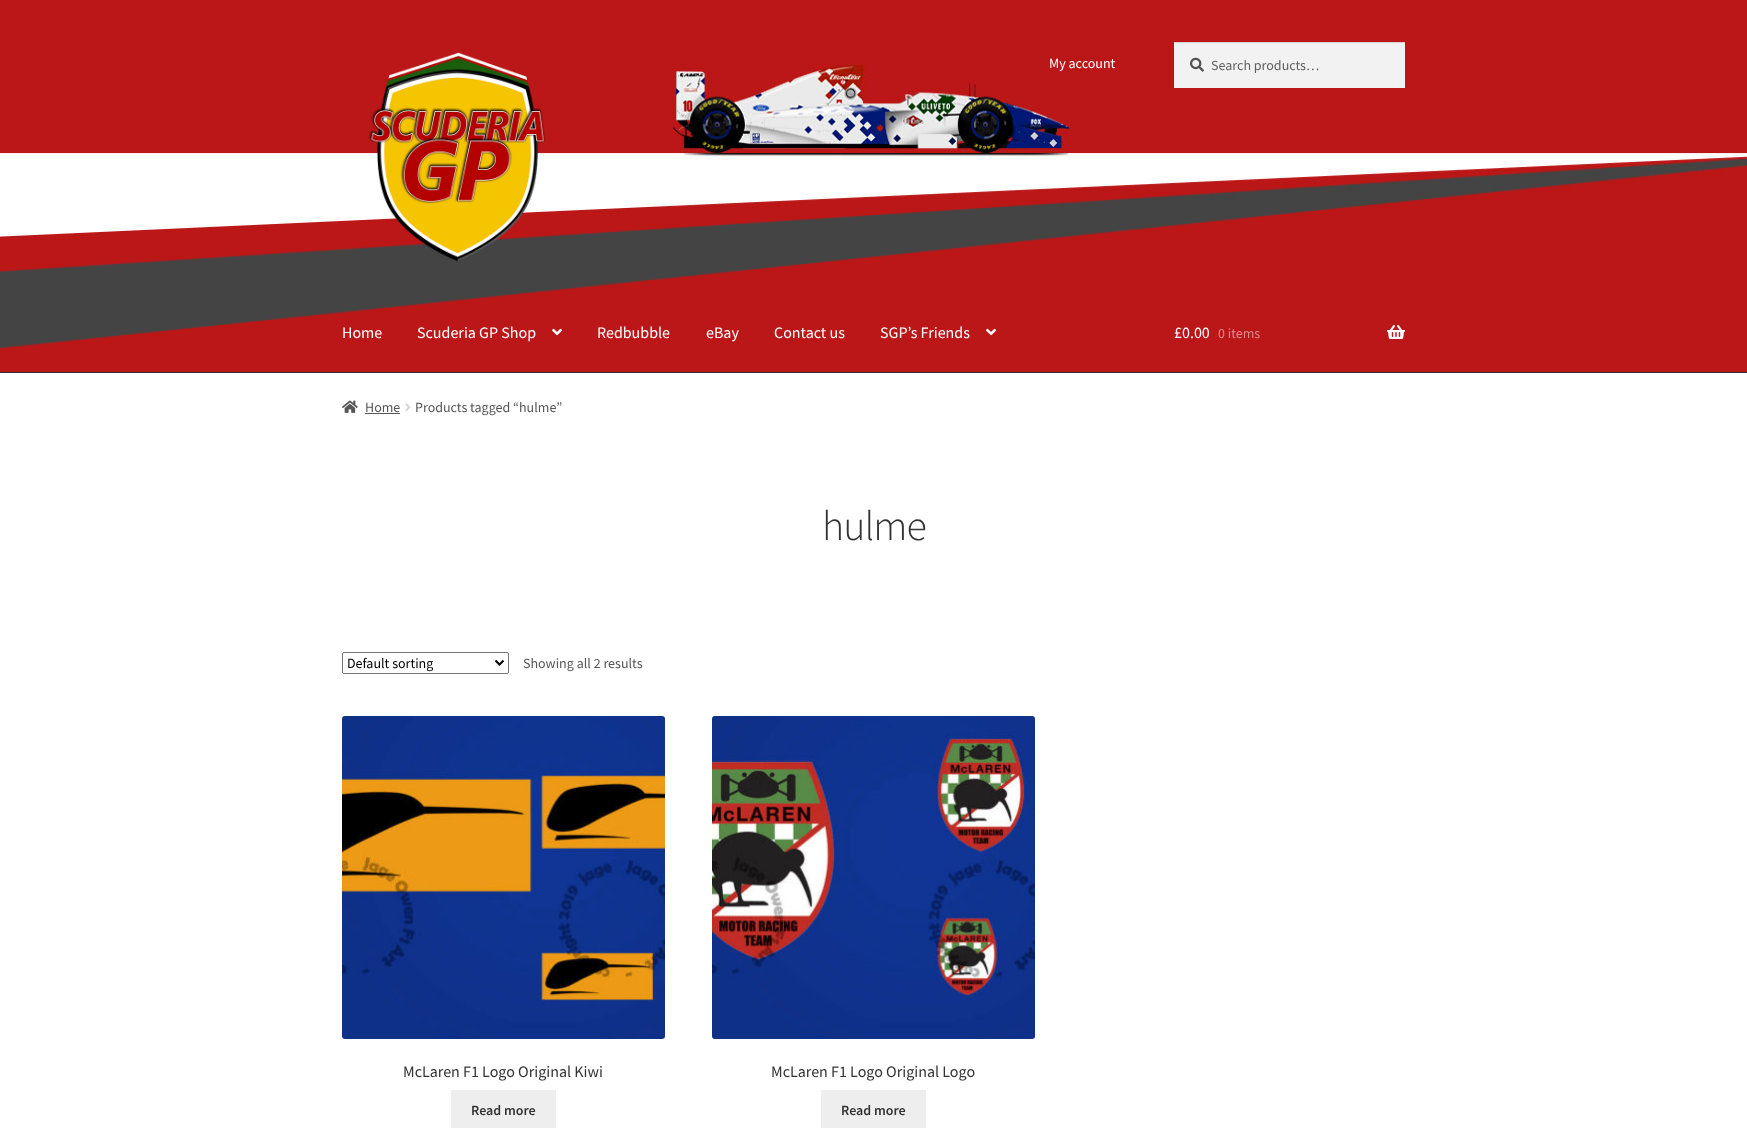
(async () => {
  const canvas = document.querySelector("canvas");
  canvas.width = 1747;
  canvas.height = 1128;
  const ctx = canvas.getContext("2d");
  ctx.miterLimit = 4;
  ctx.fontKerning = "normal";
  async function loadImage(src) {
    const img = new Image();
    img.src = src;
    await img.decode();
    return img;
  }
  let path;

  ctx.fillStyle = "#ffffff";
  ctx.fillRect(0, 0, 1747, 1128);
  ctx.drawImage(await loadImage("img/1.png"), 0, 0, 1747, 372);
  ctx.fillStyle = "#2b2b2b";
  ctx.fillRect(0, 372, 1747, 1);
  ctx.drawImage(await loadImage("img/2.png"), 368, 52, 178, 210);
  ctx.fillStyle = "#f2f2f2";
  ctx.fillRect(1174, 43, 231, 45);
  ctx.drawImage(await loadImage("img/3.png"), 1190, 57, 14, 15);
  ctx.fillStyle = "#d4d4d4";
  ctx.fillRect(1174, 42, 231, 1);
  ctx.drawImage(await loadImage("img/4.png"), 552, 328, 10, 8);
  ctx.drawImage(await loadImage("img/4.png"), 986, 328, 10, 8);
  ctx.drawImage(await loadImage("img/5.png"), 1387, 325, 18, 14);
  ctx.drawImage(await loadImage("img/6.png"), 342, 400, 16, 13);
  ctx.fillStyle = "#565656";
  ctx.fillRect(365, 413, 35, 1);
  ctx.drawImage(await loadImage("img/7.png"), 405, 403, 6, 8);
  ctx.beginPath();
  ctx.roundRect(342.5, 652.5, 166, 21, 1.5);
  ctx.strokeStyle = "#767676";
  ctx.stroke();
  path = new Path2D("M495.5 660.5L499.5 664.5L503.5 660.5");
  ctx.strokeStyle = "#000000";
  ctx.lineWidth = 2;
  ctx.stroke(path);
  ctx.drawImage(await loadImage("img/8.png"), 342, 716, 323, 323);
  ctx.fillStyle = "#eeeeee";
  ctx.fillRect(451, 1090, 105, 38);
  ctx.drawImage(await loadImage("img/9.png"), 712, 716, 323, 323);
  ctx.fillRect(821, 1090, 105, 38);
  ctx.font = "14px Source Sans Pro";
  ctx.fillStyle = "#ffffff";
  ctx.fillText("My account", 1049, 68);
  ctx.fillStyle = "#616161";
  ctx.fillText("Search products…", 1211, 70);
  ctx.font = "16px Source Sans Pro";
  ctx.fillStyle = "#ffffff";
  for (const [text, x, y] of [
    ["Home", 342, 338],
    ["Scuderia GP Shop", 417, 338],
    ["Redbubble", 597, 338],
    ["eBay", 706, 338],
    ["Contact us", 774, 338],
    ["SGP’s Friends", 880, 338],
    ["£0.00", 1174, 338],
  ]) {
    ctx.fillText(text, x, y);
  }
  ctx.font = "14px Source Sans Pro";
  ctx.fillStyle = "#dd8b8c";
  ctx.fillText("0 items", 1218, 338);
  ctx.fillStyle = "#565656";
  ctx.fillText("Home", 365, 412);
  ctx.fillText("Products tagged “hulme”", 415, 412);
  ctx.letterSpacing = "-1px";
  ctx.font = "300 42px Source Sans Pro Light";
  ctx.fillStyle = "#333333";
  ctx.fillText("hulme", 822, 540);
  ctx.letterSpacing = "0px";
  ctx.font = "14px Source Sans Pro";
  ctx.fillStyle = "#000000";
  ctx.fillText("Default sorting", 347, 668);
  ctx.fillStyle = "#565656";
  ctx.fillText("Showing all 2 results", 523, 668);
  ctx.font = "16px Source Sans Pro";
  ctx.fillStyle = "#333333";
  ctx.fillText("McLaren F1 Logo Original Kiwi", 403, 1077);
  ctx.font = "600 14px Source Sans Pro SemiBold";
  ctx.fillText("Read more", 471, 1115);
  ctx.font = "16px Source Sans Pro";
  ctx.fillText("McLaren F1 Logo Original Logo", 771, 1077);
  ctx.font = "600 14px Source Sans Pro SemiBold";
  ctx.fillText("Read more", 841, 1115);
})();
